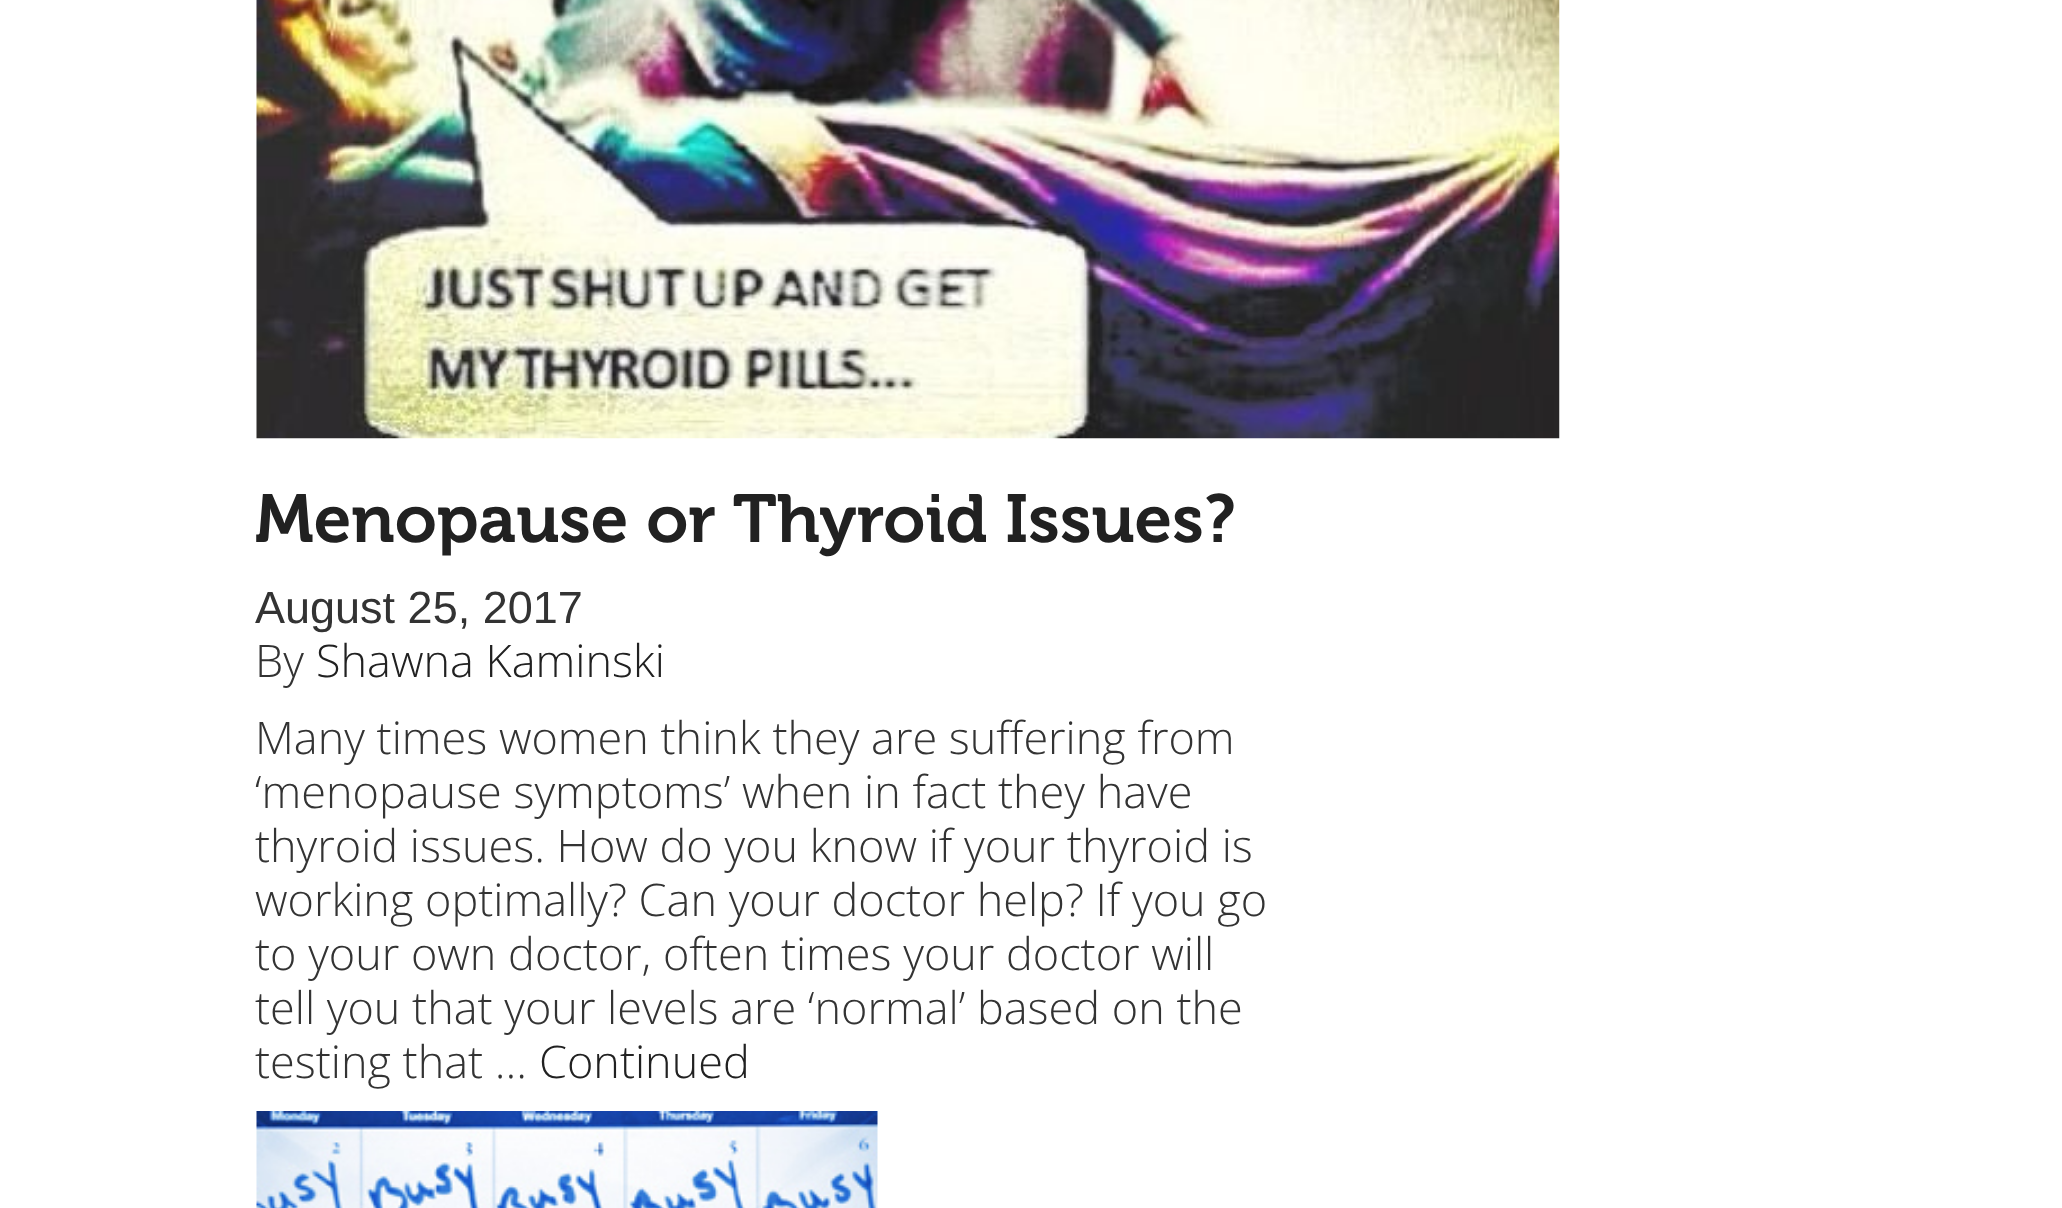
(async () => {
  const canvas = document.querySelector("canvas");
  canvas.width = 2062;
  canvas.height = 1208;
  const ctx = canvas.getContext("2d");
  ctx.miterLimit = 4;
  ctx.fontKerning = "normal";
  async function loadImage(src) {
    const img = new Image();
    img.src = src;
    await img.decode();
    return img;
  }

  ctx.fillStyle = "#ffffff";
  ctx.fillRect(0, 0, 2062, 1208);
  ctx.drawImage(await loadImage("img/1.png"), 256, 0, 1304, 439);
  ctx.drawImage(await loadImage("img/2.png"), 256, 1111, 622, 97);
  ctx.font = "600 67.5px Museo";
  ctx.fillStyle = "#212121";
  ctx.fillText("Menopause or Thyroid Issues?", 255, 542);
  ctx.font = "45px Liberation Sans";
  ctx.fillStyle = "#333333";
  ctx.fillText("August 25, 2017", 255, 623);
  ctx.font = "300 45px Open Sans";
  ctx.fillText("By", 255, 677);
  ctx.fillStyle = "#212121";
  ctx.fillText("Shawna Kaminski", 316, 677);
  ctx.fillStyle = "#333333";
  for (const [text, x, y] of [
    ["Many times women think they are suffering from", 255, 754],
    ["‘menopause symptoms’ when in fact they have", 255, 808],
    ["thyroid issues. How do you know if your thyroid is", 255, 862],
    ["working optimally? Can your doctor help? If you go", 255, 916],
    ["to your own doctor, often times your doctor will", 255, 970],
    ["tell you that your levels are ‘normal’ based on the", 255, 1024],
    ["testing that …", 255, 1078],
  ]) {
    ctx.fillText(text, x, y);
  }
  ctx.fillStyle = "#212121";
  ctx.fillText("Continued", 539, 1078);
})();
